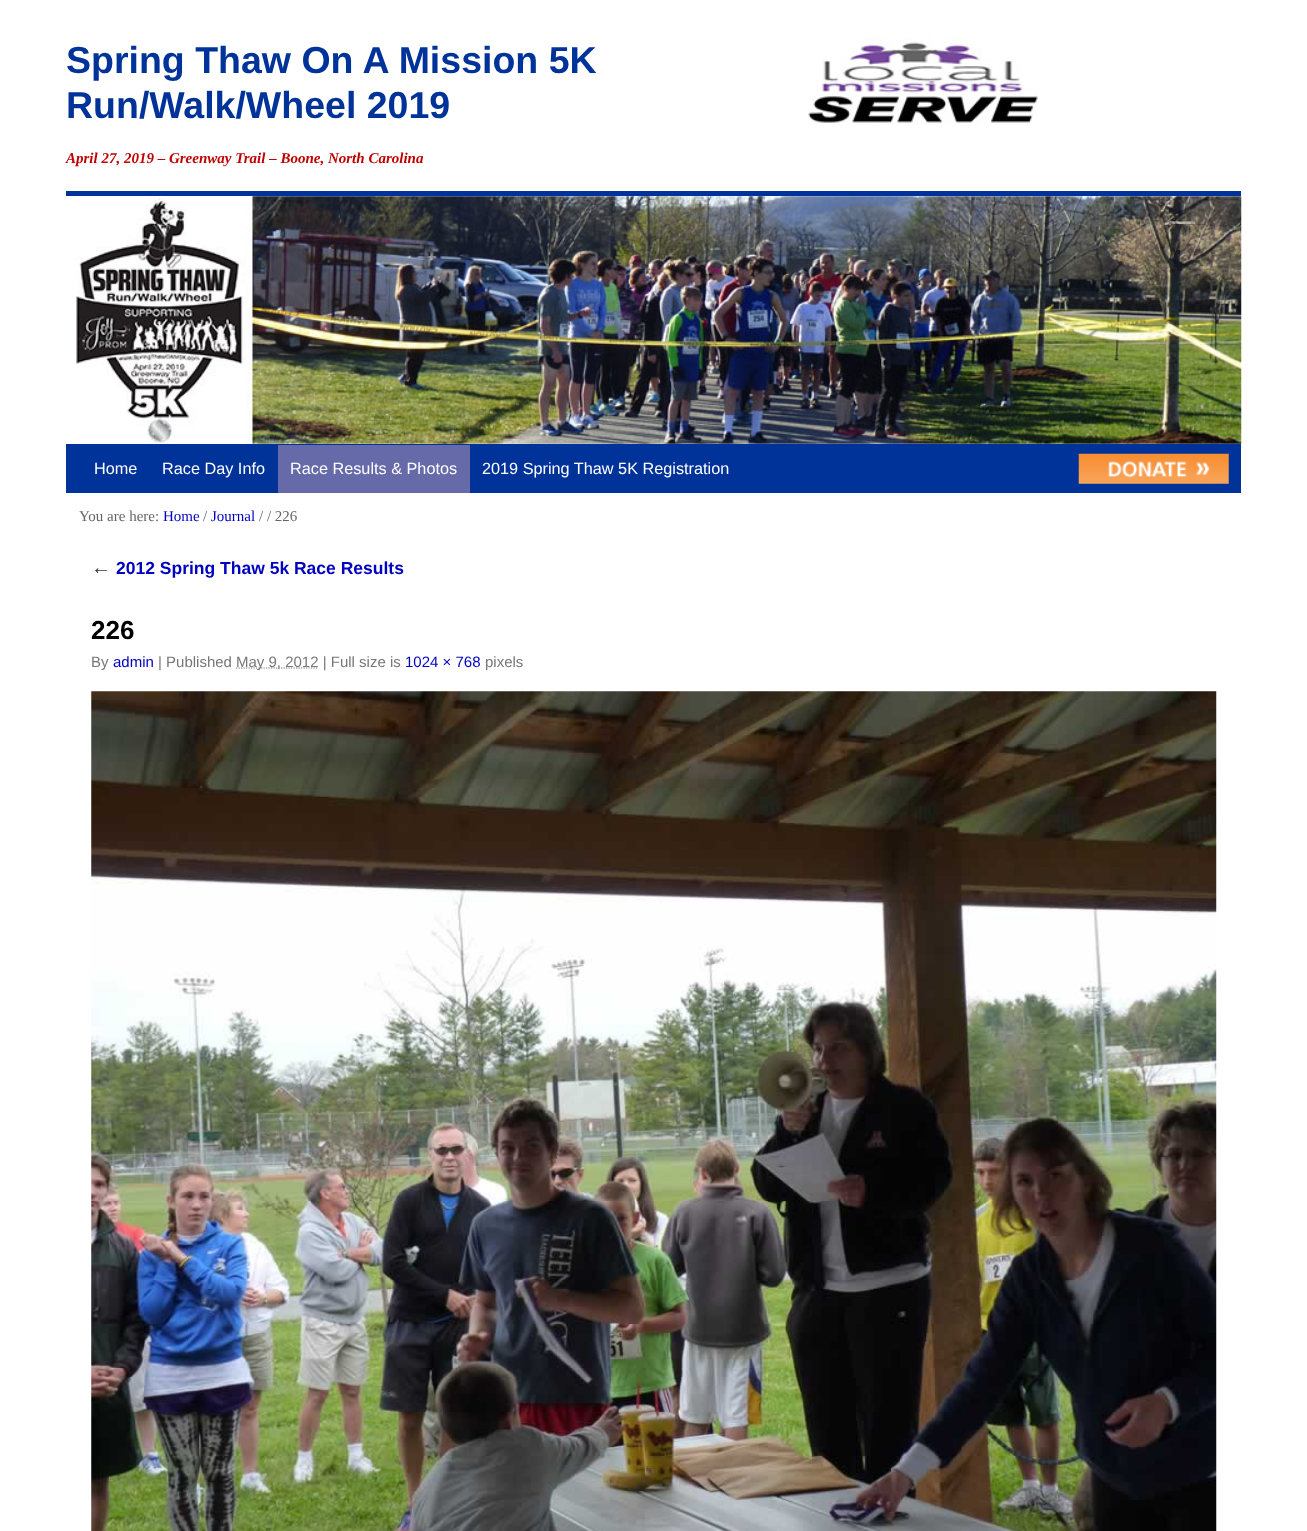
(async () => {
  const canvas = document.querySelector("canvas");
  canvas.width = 1307;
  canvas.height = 1531;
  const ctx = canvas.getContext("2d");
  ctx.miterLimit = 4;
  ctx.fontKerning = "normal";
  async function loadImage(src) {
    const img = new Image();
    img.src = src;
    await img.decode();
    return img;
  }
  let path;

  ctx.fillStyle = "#ffffff";
  ctx.fillRect(0, 0, 1307, 1531);
  ctx.drawImage(await loadImage("img/1.png"), 808, 37, 231, 88);
  ctx.fillStyle = "#003399";
  ctx.fillRect(66, 191, 1175, 5);
  ctx.fillRect(66, 444, 1175, 49);
  ctx.drawImage(await loadImage("img/2.png"), 76, 196, 1166, 248);
  ctx.fillStyle = "#666aa9";
  ctx.fillRect(278, 445, 192, 48);
  ctx.drawImage(await loadImage("img/3.png"), 1078, 453, 151, 31);
  path = new Path2D("M236 668H318.5");
  ctx.strokeStyle = "#777777";
  ctx.lineWidth = 1.2;
  ctx.setLineDash([1.25, 1.25]);
  ctx.stroke(path);
  ctx.drawImage(await loadImage("img/4.png"), 91, 691, 1126, 840);
  ctx.font = "bold 37.5px Liberation Sans";
  ctx.fillStyle = "#003399";
  ctx.fillText("Spring Thaw On A Mission 5K", 66, 73);
  ctx.fillText("Run/Walk/Wheel 2019", 66, 118);
  ctx.font = "italic bold 15px Liberation Serif";
  ctx.fillStyle = "#c00000";
  ctx.fillText("April 27, 2019 – Greenway Trail – Boone, North Carolina", 66, 163);
  ctx.font = "16.25px Liberation Sans";
  ctx.fillStyle = "#ffffff";
  for (const [text, x, y] of [
    ["Home", 94, 474],
    ["Race Day Info", 162, 474],
    ["Race Results & Photos", 290, 474],
    ["2019 Spring Thaw 5K Registration", 482, 474],
  ]) {
    ctx.fillText(text, x, y);
  }
  ctx.font = "15px Liberation Serif";
  ctx.fillStyle = "#666666";
  ctx.fillText("You are here:", 79, 521);
  ctx.fillStyle = "#0000c0";
  ctx.fillText("Home", 163, 521);
  ctx.fillStyle = "#666666";
  ctx.fillText("/", 203, 521);
  ctx.fillStyle = "#0000c0";
  ctx.fillText("Journal", 211, 521);
  ctx.fillStyle = "#666666";
  ctx.fillText("/ / 226", 259, 521);
  ctx.font = "italic 20px Liberation Serif";
  ctx.fillStyle = "#333333";
  ctx.fillText("←", 91, 574);
  ctx.font = "bold 17.5px Liberation Sans";
  ctx.fillStyle = "#0000c0";
  ctx.fillText("2012 Spring Thaw 5k Race Results", 116, 574);
  ctx.font = "bold 26px Liberation Sans";
  ctx.fillStyle = "#000000";
  ctx.fillText("226", 91, 639);
  ctx.font = "15px Liberation Sans";
  ctx.fillStyle = "#777777";
  ctx.fillText("By", 91, 667);
  ctx.fillStyle = "#0000c0";
  ctx.fillText("admin", 113, 667);
  ctx.fillStyle = "#777777";
  ctx.fillText("| Published", 158, 667);
  ctx.fillText("May 9, 2012 | Full size is", 236, 667);
  ctx.fillStyle = "#0000c0";
  ctx.fillText("1024 × 768", 405, 667);
  ctx.fillStyle = "#777777";
  ctx.fillText("pixels", 485, 667);
})();
